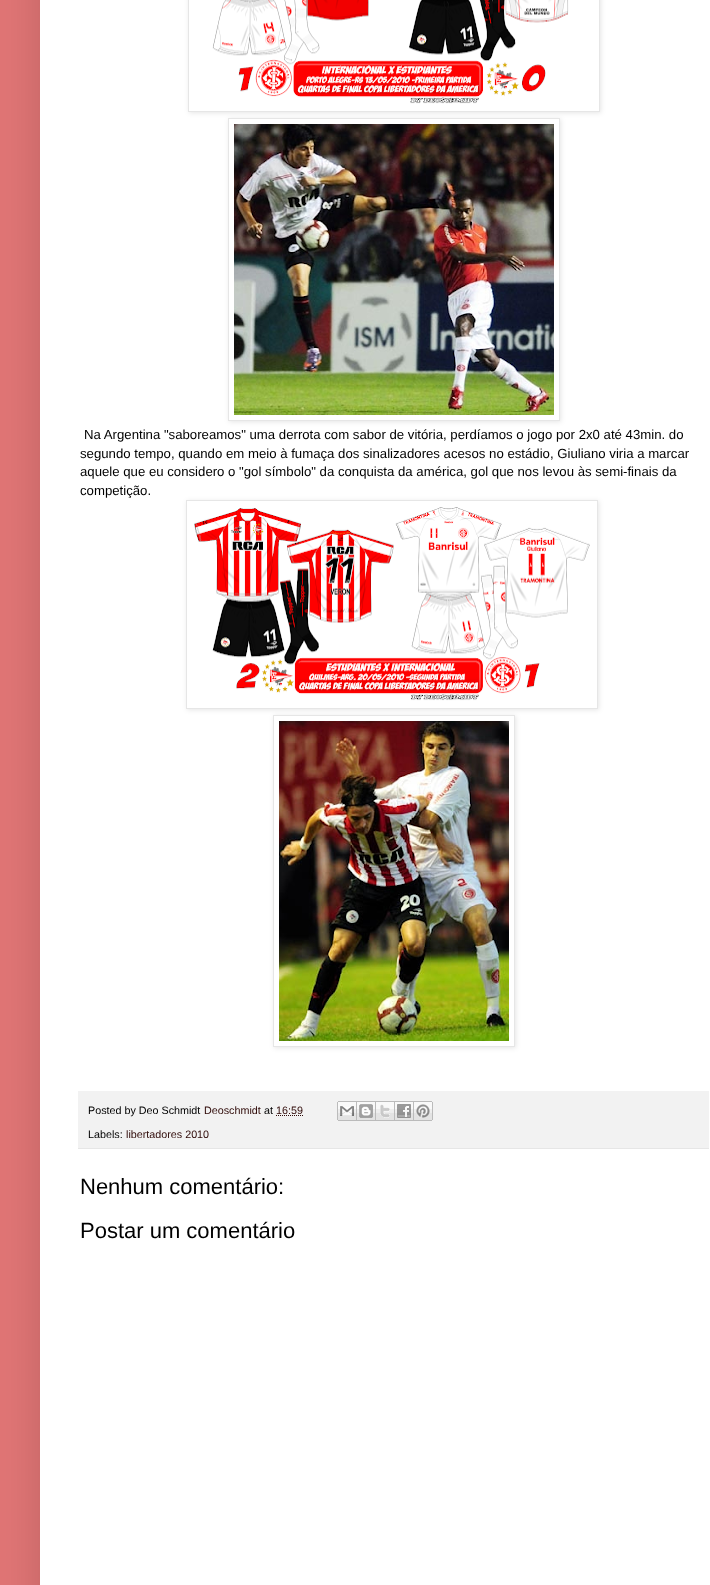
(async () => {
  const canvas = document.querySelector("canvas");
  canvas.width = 710;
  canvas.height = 1585;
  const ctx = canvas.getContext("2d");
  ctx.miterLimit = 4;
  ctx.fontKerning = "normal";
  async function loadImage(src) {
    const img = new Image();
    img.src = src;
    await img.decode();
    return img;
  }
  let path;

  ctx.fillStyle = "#e07575";
  ctx.fillRect(0, 0, 710, 1585);
  ctx.fillStyle = "rgba(0, 0, 0, 0.15)";
  ctx.filter = "blur(20px)";
  ctx.beginPath();
  ctx.rect(40, -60, 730, 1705);
  ctx.fill();
  ctx.filter = "none";
  ctx.fillStyle = "#ffffff";
  ctx.fillRect(40, 0, 670, 1585);
  ctx.save();
  path = new Path2D("M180 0H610V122H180ZM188-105H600V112H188Z");
  ctx.clip(path, "evenodd");
  ctx.fillStyle = "rgba(0, 0, 0, 0.1)";
  ctx.filter = "blur(2.5px)";
  ctx.beginPath();
  ctx.rect(189, -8, 412, 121);
  ctx.fill();
  ctx.filter = "none";
  ctx.restore();
  ctx.strokeStyle = "#e6e6e6";
  ctx.strokeRect(188.5, -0.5, 411, 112);
  ctx.drawImage(await loadImage("img/1.png"), 212, 0, 357, 104);
  ctx.save();
  path = new Path2D("M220 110H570V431H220ZM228 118H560V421H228Z");
  ctx.clip(path, "evenodd");
  ctx.fillStyle = "rgba(0, 0, 0, 0.1)";
  ctx.filter = "blur(2.5px)";
  ctx.beginPath();
  ctx.rect(229, 119, 332, 303);
  ctx.fill();
  ctx.filter = "none";
  ctx.restore();
  ctx.strokeRect(228.5, 118.5, 331, 302);
  ctx.drawImage(await loadImage("img/2.png"), 234, 124, 320, 291);
  ctx.save();
  path = new Path2D("M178 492H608V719H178ZM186 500H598V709H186Z");
  ctx.clip(path, "evenodd");
  ctx.fillStyle = "rgba(0, 0, 0, 0.1)";
  ctx.filter = "blur(2.5px)";
  ctx.beginPath();
  ctx.rect(187, 501, 412, 209);
  ctx.fill();
  ctx.filter = "none";
  ctx.restore();
  ctx.strokeRect(186.5, 500.5, 411, 208);
  ctx.drawImage(await loadImage("img/3.png"), 194, 507, 396, 194);
  ctx.save();
  path = new Path2D("M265 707H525V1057H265ZM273 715H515V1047H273Z");
  ctx.clip(path, "evenodd");
  ctx.fillStyle = "rgba(0, 0, 0, 0.1)";
  ctx.filter = "blur(2.5px)";
  ctx.beginPath();
  ctx.rect(274, 716, 242, 332);
  ctx.fill();
  ctx.filter = "none";
  ctx.restore();
  ctx.strokeRect(273.5, 715.5, 241, 331);
  ctx.drawImage(await loadImage("img/4.png"), 279, 721, 230, 320);
  ctx.fillStyle = "#f2f2f2";
  ctx.fillRect(78, 1091, 631, 57);
  ctx.fillStyle = "#e6e6e6";
  ctx.fillRect(78, 1148, 631, 1);
  path = new Path2D("M276 1115.5H303");
  ctx.strokeStyle = "#2f0a08";
  ctx.setLineDash([1, 1]);
  ctx.stroke(path);
  ctx.drawImage(await loadImage("img/5.png"), 337, 1101, 20, 20);
  ctx.drawImage(await loadImage("img/6.png"), 357, 1101, 19, 20);
  ctx.drawImage(await loadImage("img/7.png"), 376, 1101, 19, 20);
  ctx.drawImage(await loadImage("img/8.png"), 395, 1101, 19, 20);
  ctx.drawImage(await loadImage("img/9.png"), 414, 1101, 19, 20);
  ctx.font = "13.2px Liberation Sans";
  ctx.fillStyle = "#000000";
  for (const [text, x, y] of [
    ["Na Argentina \"saboreamos\" uma derrota com sabor de vitória, perdíamos o jogo por 2x0 até 43min. do", 84, 439],
    ["segundo tempo, quando em meio à fumaça dos sinalizadores acesos no estádio, Giuliano viria a marcar", 80, 458],
    ["aquele que eu considero o \"gol símbolo\" da conquista da américa, gol que nos levou às semi-finais da", 80, 476],
    ["competição.", 80, 495],
  ]) {
    ctx.fillText(text, x, y);
  }
  ctx.font = "10.75px Liberation Sans";
  ctx.fillText("Posted by Deo Schmidt", 88, 1114);
  ctx.fillStyle = "#2f0a08";
  ctx.fillText("Deoschmidt", 204, 1114);
  ctx.fillStyle = "#000000";
  ctx.fillText("at", 264, 1114);
  ctx.fillStyle = "#2f0a08";
  ctx.fillText("16:59", 276, 1114);
  ctx.fillStyle = "#000000";
  ctx.fillText("Labels:", 88, 1138);
  ctx.fillStyle = "#2f0a08";
  ctx.fillText("libertadores 2010", 126, 1138);
  ctx.font = "22px Liberation Sans";
  ctx.fillStyle = "#000000";
  ctx.fillText("Nenhum comentário:", 80, 1194);
  ctx.fillText("Postar um comentário", 80, 1238);
})();
